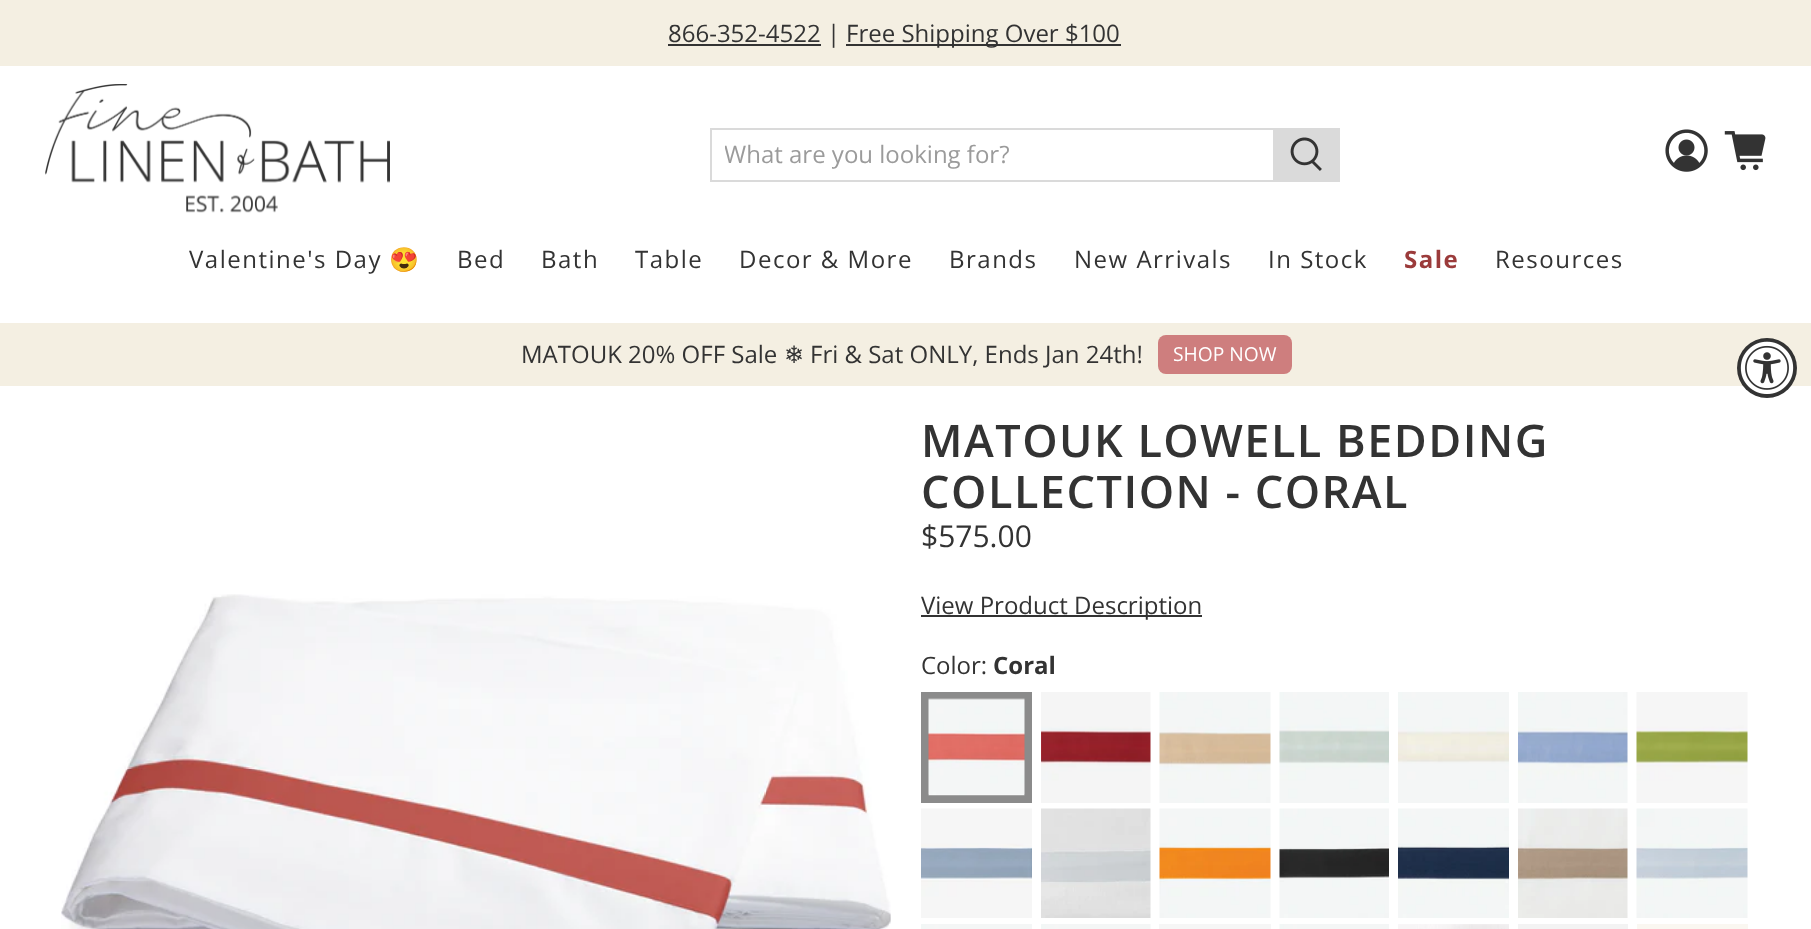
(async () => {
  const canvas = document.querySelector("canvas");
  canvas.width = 1811;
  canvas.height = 929;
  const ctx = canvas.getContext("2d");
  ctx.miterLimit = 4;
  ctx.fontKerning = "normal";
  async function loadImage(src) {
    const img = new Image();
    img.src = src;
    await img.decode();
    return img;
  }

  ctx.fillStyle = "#ffffff";
  ctx.fillRect(0, 0, 1811, 929);
  for (const [x, y, w, h, color] of [
    [0, 0, 1811, 66, "#f4efe2"],
    [668, 44, 153, 2, "#333333"],
    [846, 44, 275, 2, "#333333"],
  ]) {
    ctx.fillStyle = color;
    ctx.fillRect(x, y, w, h);
  }
  ctx.drawImage(await loadImage("img/1.png"), 45, 84, 345, 129);
  ctx.strokeStyle = "#dadada";
  ctx.lineWidth = 2;
  ctx.strokeRect(711, 129, 563, 52);
  ctx.fillStyle = "#dadada";
  ctx.fillRect(1275, 128, 65, 54);
  ctx.drawImage(await loadImage("img/2.png"), 1290, 137, 32, 34);
  ctx.drawImage(await loadImage("img/3.png"), 1665, 129, 43, 43);
  ctx.drawImage(await loadImage("img/4.png"), 1724, 131, 42, 40);
  ctx.fillStyle = "#f4efe2";
  ctx.fillRect(0, 323, 1811, 63);
  ctx.fillStyle = "#ce7e7e";
  ctx.beginPath();
  ctx.roundRect(1158, 335, 134, 39, 8);
  ctx.fill();
  ctx.fillStyle = "#333333";
  ctx.beginPath();
  ctx.arc(1767, 368, 30, 0, Math.PI * 2);
  ctx.fill();
  ctx.drawImage(await loadImage("img/5.png"), 1740, 341, 54, 53);
  ctx.fillRect(921, 615, 281, 2);
  ctx.strokeStyle = "#8b8b8b";
  ctx.lineWidth = 8;
  ctx.strokeRect(925, 696, 103, 103);
  ctx.drawImage(await loadImage("img/6.png"), 928, 698, 97, 98);
  ctx.drawImage(await loadImage("img/7.png"), 1041, 692, 110, 111);
  ctx.drawImage(await loadImage("img/8.png"), 1159, 692, 112, 111);
  ctx.drawImage(await loadImage("img/9.png"), 1279, 692, 110, 111);
  ctx.drawImage(await loadImage("img/10.png"), 1398, 692, 111, 111);
  ctx.drawImage(await loadImage("img/11.png"), 1518, 692, 110, 111);
  ctx.drawImage(await loadImage("img/12.png"), 1636, 692, 112, 111);
  ctx.drawImage(await loadImage("img/13.png"), 921, 808, 111, 110);
  ctx.drawImage(await loadImage("img/14.png"), 1041, 808, 110, 110);
  ctx.drawImage(await loadImage("img/15.png"), 1159, 808, 112, 110);
  ctx.drawImage(await loadImage("img/16.png"), 1279, 808, 110, 110);
  ctx.drawImage(await loadImage("img/17.png"), 1398, 808, 111, 110);
  ctx.drawImage(await loadImage("img/18.png"), 1518, 808, 110, 110);
  ctx.drawImage(await loadImage("img/19.png"), 1636, 808, 112, 110);
  ctx.drawImage(await loadImage("img/20.png"), 921, 924, 111, 5);
  ctx.drawImage(await loadImage("img/21.png"), 1041, 924, 110, 5);
  ctx.fillStyle = "#f6f6f6";
  ctx.fillRect(1159, 924, 112, 5);
  ctx.drawImage(await loadImage("img/22.png"), 1279, 924, 110, 5);
  ctx.drawImage(await loadImage("img/23.png"), 1398, 924, 111, 5);
  ctx.fillStyle = "#f3f3f3";
  ctx.fillRect(1518, 924, 110, 5);
  ctx.fillStyle = "#faf7f1";
  ctx.fillRect(1637, 924, 111, 5);
  ctx.drawImage(await loadImage("img/24.png"), 61, 594, 830, 335);
  ctx.font = "24px Open Sans";
  ctx.fillStyle = "#333333";
  ctx.fillText("866-352-4522 |", 668, 42);
  ctx.fillText("Free Shipping Over $100", 846, 42);
  ctx.save();
  ctx.beginPath();
  ctx.rect(725, 138, 535, 33);
  ctx.clip();
  ctx.fillStyle = "#9b9b9b";
  ctx.fillText("What are you looking for?", 724, 163);
  ctx.restore();
  ctx.letterSpacing = "1.5px";
  ctx.fillText("Valentine's Day", 189, 268);
  ctx.font = "24px Noto Color Emoji";
  ctx.fillText("😍", 389, 268);
  ctx.font = "24px Open Sans";
  for (const [text, x, y] of [
    ["Bed", 457, 268],
    ["Bath", 541, 268],
    ["Table", 635, 268],
    ["Decor & More", 739, 268],
    ["Brands", 949, 268],
    ["New Arrivals", 1074, 268],
    ["In Stock", 1268, 268],
  ]) {
    ctx.fillText(text, x, y);
  }
  ctx.font = "bold 24px Open Sans";
  ctx.fillStyle = "#9b3b3b";
  ctx.fillText("Sale", 1404, 268);
  ctx.font = "24px Open Sans";
  ctx.fillStyle = "#333333";
  ctx.fillText("Resources", 1495, 268);
  ctx.letterSpacing = "0px";
  ctx.fillText("MATOUK 20% OFF Sale", 521, 363);
  ctx.font = "24px DejaVu Sans";
  ctx.fillText("❄", 784, 363);
  ctx.font = "24px Open Sans";
  ctx.fillText("Fri & Sat ONLY, Ends Jan 24th!", 810, 363);
  ctx.font = "19.25px Open Sans";
  ctx.fillStyle = "#ffffff";
  ctx.fillText("SHOP NOW", 1173, 361);
  ctx.letterSpacing = "1.5px";
  ctx.font = "600 45px Open Sans";
  ctx.fillStyle = "#333333";
  ctx.fillText("MATOUK LOWELL BEDDING", 921, 457);
  ctx.fillText("COLLECTION - CORAL", 921, 508);
  ctx.letterSpacing = "0px";
  ctx.font = "30px Open Sans";
  ctx.fillText("$575.00", 921, 547);
  ctx.font = "24px Open Sans";
  ctx.fillText("View Product Description", 921, 614);
  ctx.fillText("Color:", 921, 674);
  ctx.font = "bold 24px Open Sans";
  ctx.fillText("Coral", 993, 674);
})();
